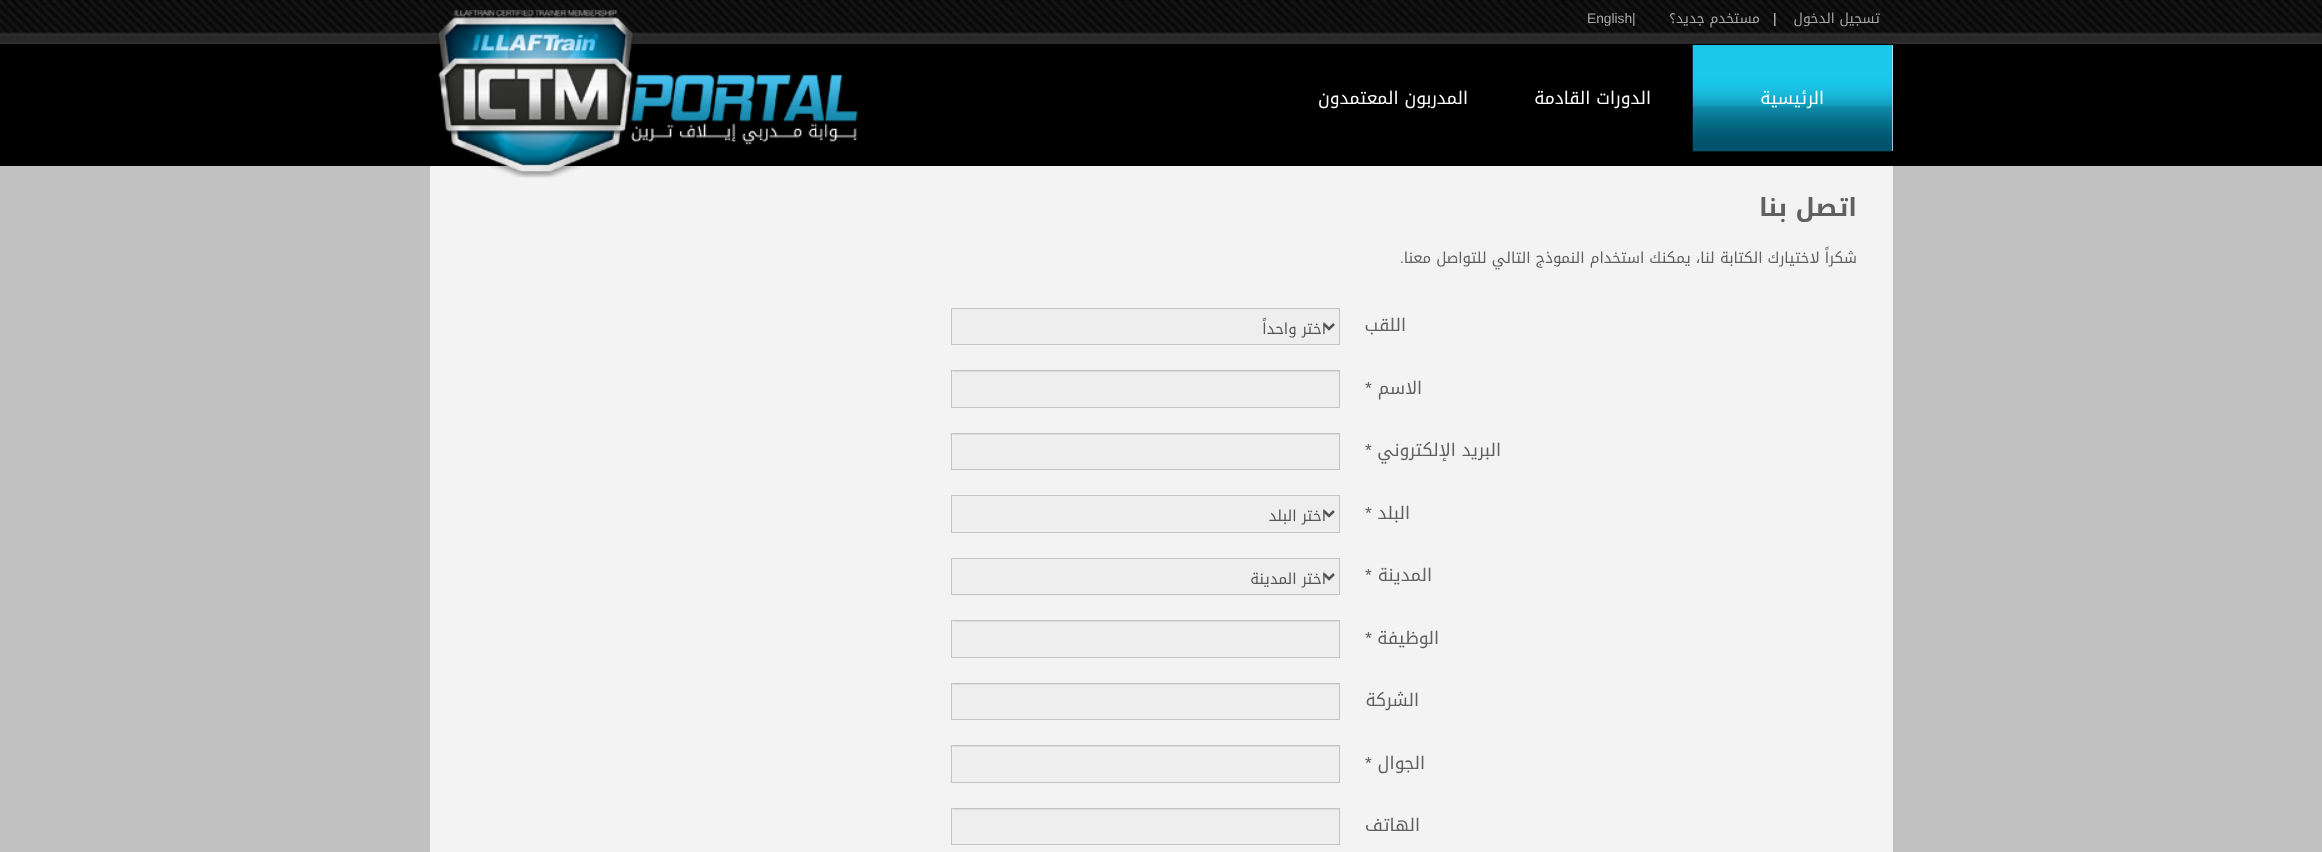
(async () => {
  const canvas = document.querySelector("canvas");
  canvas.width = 2322;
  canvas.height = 852;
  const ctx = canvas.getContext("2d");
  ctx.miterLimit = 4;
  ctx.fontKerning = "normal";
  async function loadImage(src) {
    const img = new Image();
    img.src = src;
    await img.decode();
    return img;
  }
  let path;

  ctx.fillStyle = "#c1c1c1";
  ctx.fillRect(0, 0, 2322, 852);
  ctx.fillStyle = "#000000";
  ctx.fillRect(0, 43, 2322, 123);
  ctx.drawImage(await loadImage("img/1.png"), 0, 43, 2322, 1);
  ctx.drawImage(await loadImage("img/2.png"), 0, 0, 2322, 44);
  ctx.fillRect(430, 43, 1463, 1);
  ctx.drawImage(await loadImage("img/3.png"), 430, 0, 863, 44);
  ctx.drawImage(await loadImage("img/4.png"), 1293, 0, 600, 44);
  ctx.fillStyle = "#e5e5e5";
  ctx.fillRect(1892, 45, 1, 106);
  ctx.drawImage(await loadImage("img/5.png"), 1692, 45, 201, 107);
  ctx.fillStyle = "#f3f3f3";
  ctx.fillRect(430, 166, 1463, 686);
  ctx.drawImage(await loadImage("img/6.png"), 437, 9, 421, 169);
  ctx.fillStyle = "#eeeeee";
  ctx.beginPath();
  ctx.rect(951.5, 308.5, 388, 36);
  ctx.fill();
  ctx.strokeStyle = "#c3c3c3";
  ctx.stroke();
  path = new Path2D("M1324 324L1329 329L1334 324");
  ctx.strokeStyle = "#555555";
  ctx.lineWidth = 2.5;
  ctx.stroke(path);
  ctx.fillRect(952, 371, 387, 36);
  ctx.fillStyle = "#dcdcdc";
  ctx.fillRect(953, 371, 386, 1);
  ctx.strokeStyle = "#c3c3c3";
  ctx.lineWidth = 1;
  ctx.strokeRect(951.5, 370.5, 388, 37);
  ctx.fillStyle = "#eeeeee";
  ctx.fillRect(952, 434, 387, 35);
  ctx.fillStyle = "#dcdcdc";
  ctx.fillRect(953, 434, 386, 1);
  ctx.strokeRect(951.5, 433.5, 388, 36);
  ctx.fillStyle = "#eeeeee";
  ctx.beginPath();
  ctx.rect(951.5, 495.5, 388, 37);
  ctx.fill();
  ctx.stroke();
  path = new Path2D("M1324 511L1329 516L1334 511");
  ctx.strokeStyle = "#555555";
  ctx.lineWidth = 2.5;
  ctx.stroke(path);
  ctx.beginPath();
  ctx.rect(951.5, 558.5, 388, 36);
  ctx.fill();
  ctx.strokeStyle = "#c3c3c3";
  ctx.lineWidth = 1;
  ctx.stroke();
  path = new Path2D("M1324 574L1329 579L1334 574");
  ctx.strokeStyle = "#555555";
  ctx.lineWidth = 2.5;
  ctx.stroke(path);
  ctx.fillRect(952, 621, 387, 36);
  ctx.fillStyle = "#dcdcdc";
  ctx.fillRect(953, 621, 386, 1);
  ctx.strokeStyle = "#c3c3c3";
  ctx.lineWidth = 1;
  ctx.strokeRect(951.5, 620.5, 388, 37);
  ctx.fillStyle = "#eeeeee";
  ctx.fillRect(952, 684, 387, 35);
  ctx.fillStyle = "#dcdcdc";
  ctx.fillRect(953, 684, 386, 1);
  ctx.strokeRect(951.5, 683.5, 388, 36);
  ctx.fillStyle = "#eeeeee";
  ctx.fillRect(952, 746, 387, 36);
  ctx.fillStyle = "#dcdcdc";
  ctx.fillRect(953, 746, 386, 1);
  ctx.strokeRect(951.5, 745.5, 388, 37);
  ctx.fillStyle = "#eeeeee";
  ctx.fillRect(952, 809, 387, 35);
  ctx.fillStyle = "#dcdcdc";
  ctx.fillRect(953, 809, 386, 1);
  ctx.strokeRect(951.5, 808.5, 388, 36);
  ctx.direction = "rtl";
  ctx.font = "13.75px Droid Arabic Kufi";
  ctx.fillStyle = "#a8a8a8";
  ctx.fillText("تسجيل الدخول", 1880, 23);
  ctx.direction = "ltr";
  ctx.font = "13.75px Liberation Sans";
  ctx.fillStyle = "#d2d2d2";
  ctx.fillText("|", 1773, 23);
  ctx.direction = "rtl";
  ctx.font = "13.75px Droid Arabic Kufi";
  ctx.fillStyle = "#a8a8a8";
  ctx.fillText("مستخدم جديد؟", 1760, 23);
  ctx.direction = "ltr";
  ctx.font = "13.75px Liberation Sans";
  ctx.fillText("English|", 1587, 23);
  ctx.direction = "rtl";
  ctx.font = "17.5px Droid Arabic Kufi";
  ctx.fillStyle = "#ffffff";
  for (const [text, x, y] of [
    ["الرئيسية", 1824, 104],
    ["الدورات القادمة", 1651, 104],
    ["المدربون المعتمدون", 1468, 104],
  ]) {
    ctx.fillText(text, x, y);
  }
  ctx.font = "bold 25px Droid Arabic Kufi";
  ctx.fillStyle = "#606060";
  ctx.fillText("اتصل بنا", 1857, 216);
  ctx.font = "15px Droid Arabic Kufi";
  ctx.fillText("شكراً لاختيارك الكتابة لنا، يمكنك استخدام النموذج التالي للتواصل معنا", 1857, 263);
  ctx.font = "15px Liberation Sans";
  ctx.fillText(".", 1404, 263);
  ctx.font = "17.5px Droid Arabic Kufi";
  ctx.fillText("اللقب", 1406, 331);
  ctx.font = "15px Droid Arabic Kufi";
  ctx.fillStyle = "#555555";
  ctx.fillText("اختر واحداً", 1326, 334);
  ctx.font = "17.5px Droid Arabic Kufi";
  ctx.fillStyle = "#606060";
  ctx.fillText("الاسم", 1422, 394);
  ctx.direction = "ltr";
  ctx.font = "17.5px Liberation Sans";
  ctx.fillText("*", 1365, 394);
  ctx.direction = "rtl";
  ctx.font = "17.5px Droid Arabic Kufi";
  ctx.fillText("البريد الإلكتروني", 1501, 456);
  ctx.direction = "ltr";
  ctx.font = "17.5px Liberation Sans";
  ctx.fillText("*", 1365, 456);
  ctx.direction = "rtl";
  ctx.font = "17.5px Droid Arabic Kufi";
  ctx.fillText("البلد", 1410, 519);
  ctx.direction = "ltr";
  ctx.font = "17.5px Liberation Sans";
  ctx.fillText("*", 1365, 519);
  ctx.direction = "rtl";
  ctx.font = "15px Droid Arabic Kufi";
  ctx.fillStyle = "#555555";
  ctx.fillText("اختر البلد", 1326, 521);
  ctx.font = "17.5px Droid Arabic Kufi";
  ctx.fillStyle = "#606060";
  ctx.fillText("المدينة", 1432, 581);
  ctx.direction = "ltr";
  ctx.font = "17.5px Liberation Sans";
  ctx.fillText("*", 1365, 581);
  ctx.direction = "rtl";
  ctx.font = "15px Droid Arabic Kufi";
  ctx.fillStyle = "#555555";
  ctx.fillText("اختر المدينة", 1326, 584);
  ctx.font = "17.5px Droid Arabic Kufi";
  ctx.fillStyle = "#606060";
  ctx.fillText("الوظيفة", 1439, 644);
  ctx.direction = "ltr";
  ctx.font = "17.5px Liberation Sans";
  ctx.fillText("*", 1365, 644);
  ctx.direction = "rtl";
  ctx.font = "17.5px Droid Arabic Kufi";
  ctx.fillText("الشركة", 1419, 706);
  ctx.fillText("الجوال", 1425, 769);
  ctx.direction = "ltr";
  ctx.font = "17.5px Liberation Sans";
  ctx.fillText("*", 1365, 769);
  ctx.direction = "rtl";
  ctx.font = "17.5px Droid Arabic Kufi";
  ctx.fillText("الهاتف", 1420, 831);
})();
